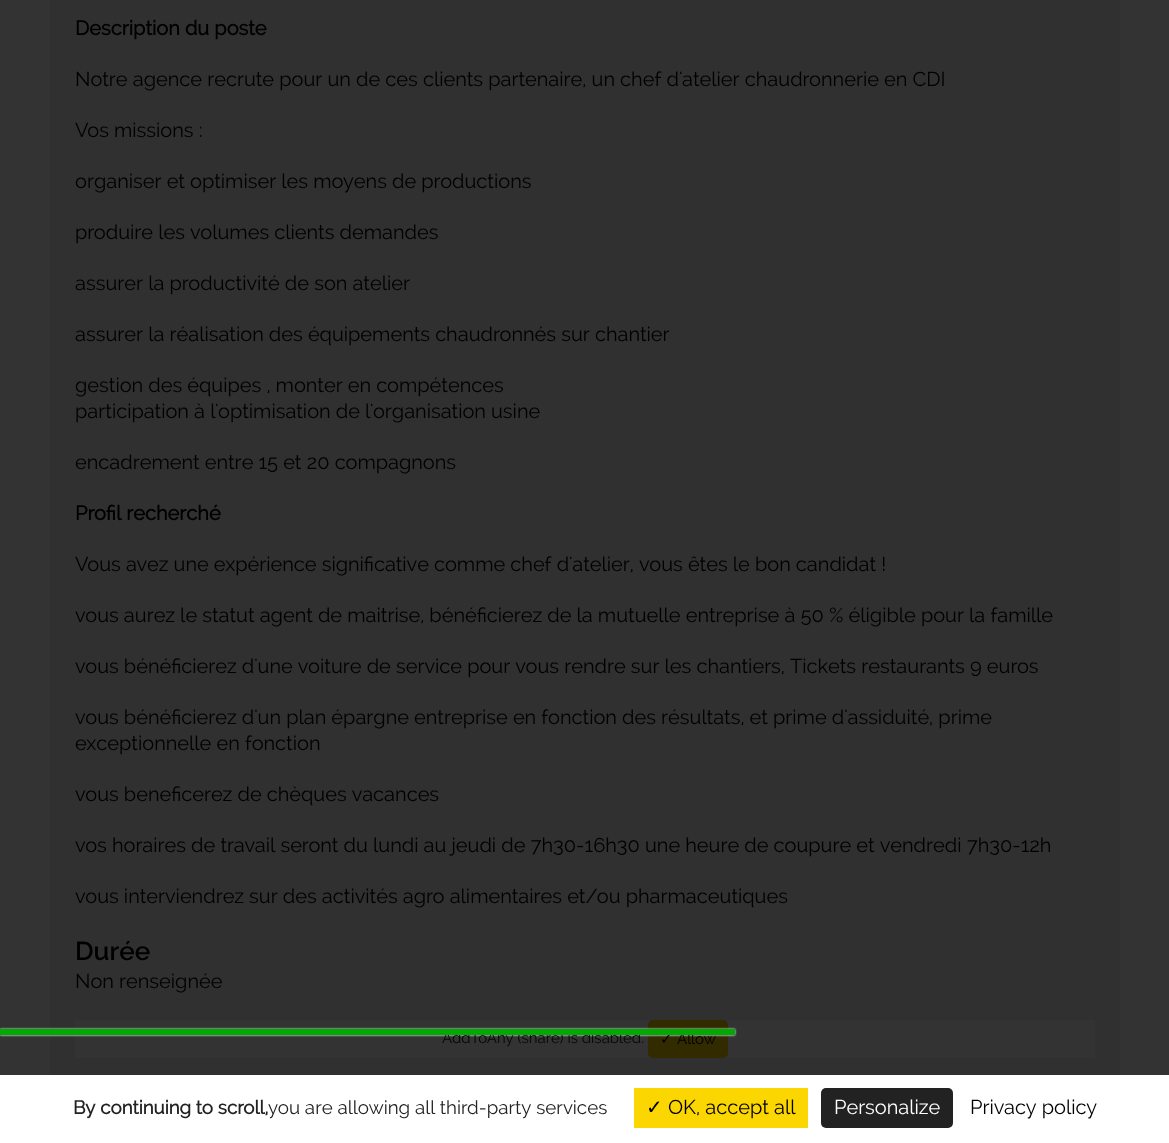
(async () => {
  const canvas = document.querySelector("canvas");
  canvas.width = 1169;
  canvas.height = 1143;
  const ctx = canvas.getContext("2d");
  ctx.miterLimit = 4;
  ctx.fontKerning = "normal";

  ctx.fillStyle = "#333333";
  ctx.fillRect(0, 0, 1169, 1143);
  ctx.fillStyle = "#303030";
  ctx.fillRect(50, 0, 1070, 1075);
  ctx.fillStyle = "#333333";
  ctx.fillRect(75, 1020, 1020, 38);
  ctx.fillStyle = "#322b00";
  ctx.beginPath();
  ctx.roundRect(648, 1020, 80, 38, 5);
  ctx.fill();
  ctx.fillStyle = "#555555";
  ctx.filter = "blur(1px)";
  ctx.beginPath();
  ctx.rect(0, 1030, 735, 6);
  ctx.fill();
  ctx.filter = "none";
  ctx.fillStyle = "#ffffff";
  ctx.filter = "blur(1px)";
  ctx.beginPath();
  ctx.rect(0, 1029, 735, 6);
  ctx.fill();
  ctx.filter = "none";
  ctx.fillRect(0, 1075, 1169, 68);
  ctx.fillStyle = "#fbd600";
  ctx.fillRect(634, 1088, 174, 40);
  ctx.fillStyle = "#222222";
  ctx.beginPath();
  ctx.roundRect(821, 1088, 132, 40, 5);
  ctx.fill();
  ctx.font = "bold 20px Raleway";
  ctx.fillStyle = "#000000";
  ctx.fillText("Description du poste", 75, 35);
  ctx.font = "20px Raleway";
  for (const [text, x, y] of [
    ["Notre agence recrute pour un de ces clients partenaire, un chef d'atelier chaudronnerie en CDI", 75, 86],
    ["Vos missions :", 75, 137],
    ["organiser et optimiser les moyens de productions", 75, 188],
    ["produire les volumes clients demandes", 75, 239],
    ["assurer la productivité de son atelier", 75, 290],
    ["assurer la réalisation des équipements chaudronnés sur chantier", 75, 341],
    ["gestion des équipes , monter en compétences", 75, 392],
    ["participation à l'optimisation de l'organisation usine", 75, 418],
    ["encadrement entre 15 et 20 compagnons", 75, 469],
  ]) {
    ctx.fillText(text, x, y);
  }
  ctx.font = "bold 20px Raleway";
  ctx.fillText("Profil recherché", 75, 520);
  ctx.font = "20px Raleway";
  for (const [text, x, y] of [
    ["Vous avez une expérience significative comme chef d'atelier, vous êtes le bon candidat !", 75, 571],
    ["vous aurez le statut agent de maitrise, bénéficierez de la mutuelle entreprise à 50 % éligible pour la famille", 75, 622],
    ["vous bénéficierez d'une voiture de service pour vous rendre sur les chantiers, Tickets restaurants 9 euros", 75, 673],
    ["vous bénéficierez d'un plan épargne entreprise en fonction des résultats, et prime d'assiduité, prime", 75, 724],
    ["exceptionnelle en fonction", 75, 750],
    ["vous beneficerez de chèques vacances", 75, 801],
    ["vos horaires de travail seront du lundi au jeudi de 7h30-16h30 une heure de coupure et vendredi 7h30-12h", 75, 852],
    ["vous interviendrez sur des activités agro alimentaires et/ou pharmaceutiques", 75, 903],
  ]) {
    ctx.fillText(text, x, y);
  }
  ctx.font = "600 26px Raleway";
  ctx.fillText("Durée", 75, 960);
  ctx.font = "20px Raleway";
  ctx.fillText("Non renseignée", 75, 988);
  ctx.font = "15px Raleway";
  ctx.fillStyle = "#070707";
  ctx.fillText("AddToAny (share) is disabled.", 442, 1043);
  ctx.font = "15px DejaVu Sans";
  ctx.fillStyle = "#000000";
  ctx.fillText("✓", 660, 1044);
  ctx.font = "15px Raleway";
  ctx.fillText("Allow", 677, 1044);
  ctx.fillStyle = "#00aa00";
  ctx.fillRect(0, 1029, 735, 6);
  ctx.font = "bold 18.75px Raleway";
  ctx.fillStyle = "#222222";
  ctx.fillText("By continuing to scroll,", 73, 1114);
  ctx.font = "18.75px Raleway";
  ctx.fillText("you are allowing all third-party services", 268, 1114);
  ctx.font = "20px DejaVu Sans";
  ctx.fillStyle = "#000000";
  ctx.fillText("✓", 646, 1114);
  ctx.font = "20px Raleway";
  ctx.fillText("OK, accept all", 668, 1114);
  ctx.fillStyle = "#ffffff";
  ctx.fillText("Personalize", 834, 1114);
  ctx.fillStyle = "#000000";
  ctx.fillText("Privacy policy", 970, 1114);
})();
